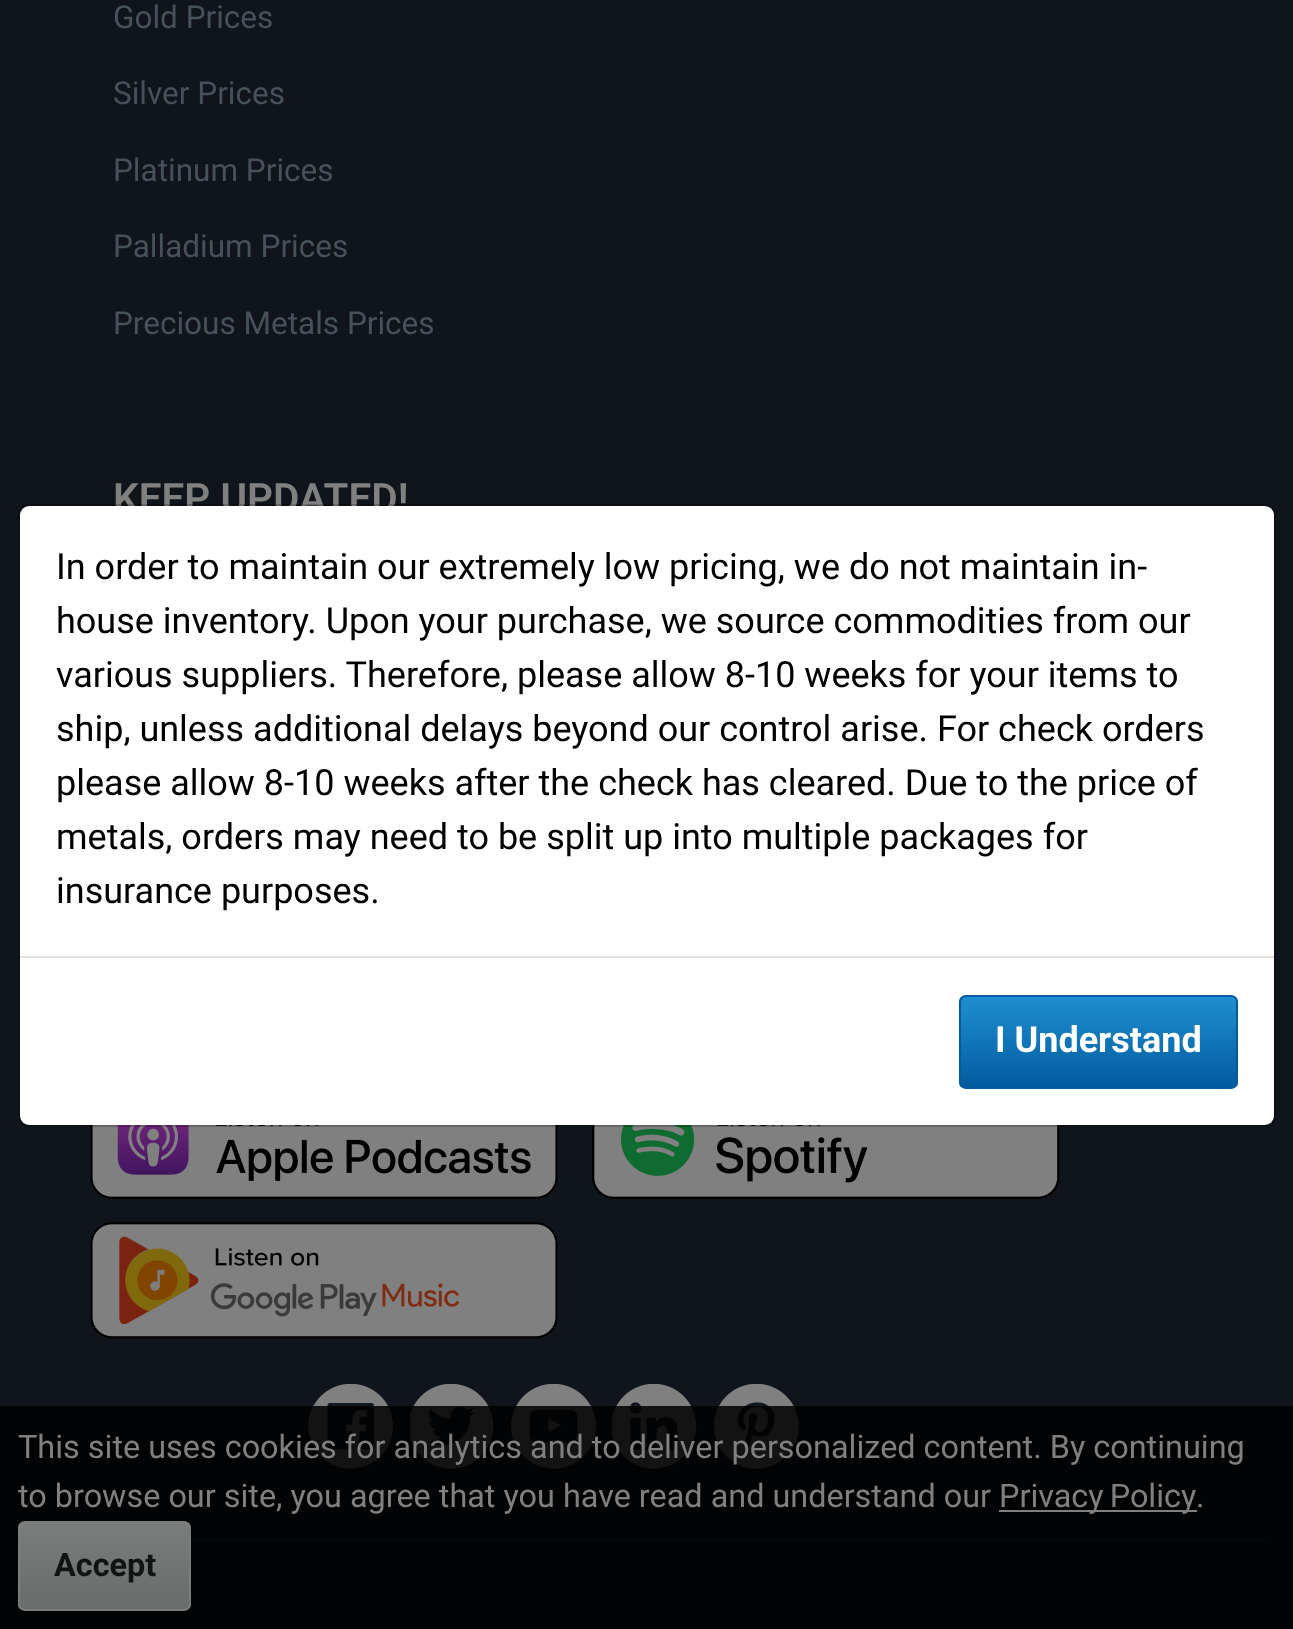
(async () => {
  const canvas = document.querySelector("canvas");
  canvas.width = 1293;
  canvas.height = 1629;
  const ctx = canvas.getContext("2d");
  ctx.miterLimit = 4;
  ctx.fontKerning = "normal";
  async function loadImage(src) {
    const img = new Image();
    img.src = src;
    await img.decode();
    return img;
  }
  let gradient;

  ctx.fillStyle = "#10151b";
  ctx.fillRect(0, 0, 1293, 1629);
  ctx.drawImage(await loadImage("img/1.png"), 90, 1125, 468, 74);
  ctx.drawImage(await loadImage("img/2.png"), 592, 1125, 468, 74);
  ctx.drawImage(await loadImage("img/3.png"), 90, 1222, 468, 117);
  ctx.drawImage(await loadImage("img/4.png"), 308, 1384, 86, 85);
  ctx.drawImage(await loadImage("img/5.png"), 410, 1384, 84, 85);
  ctx.drawImage(await loadImage("img/6.png"), 511, 1384, 85, 85);
  ctx.drawImage(await loadImage("img/7.png"), 612, 1384, 85, 85);
  ctx.drawImage(await loadImage("img/8.png"), 713, 1384, 86, 85);
  for (const [x, y, w, h, color] of [
    [191, 1537, 1080, 5, "#1b2128"],
    [0, 1406, 1293, 223, "rgba(0, 0, 0, 0.85)"],
    [999, 1510, 198, 2, "#808080"],
  ]) {
    ctx.fillStyle = color;
    ctx.fillRect(x, y, w, h);
  }
  ctx.save();
  ctx.beginPath();
  ctx.roundRect(18, 1521, 173, 90, 7);
  ctx.clip();
  gradient = ctx.createLinearGradient(105, 1523, 105, 1609);
  gradient.addColorStop(0, "#7b7d7d");
  gradient.addColorStop(1, "#6a6c6c");
  ctx.fillStyle = gradient;
  ctx.fillRect(18, 1523, 173, 86);
  ctx.restore();
  ctx.beginPath();
  ctx.roundRect(19, 1522, 171, 88, 6);
  ctx.strokeStyle = "#7b7d7d";
  ctx.lineWidth = 2;
  ctx.stroke();
  ctx.font = "31.5px Roboto";
  ctx.fillStyle = "#475159";
  for (const [text, x, y] of [
    ["Gold Prices", 113, 28],
    ["Silver Prices", 113, 104],
    ["Platinum Prices", 113, 181],
    ["Palladium Prices", 113, 257],
    ["Precious Metals Prices", 113, 334],
  ]) {
    ctx.fillText(text, x, y);
  }
  ctx.font = "600 40.5px Roboto";
  ctx.fillStyle = "#808080";
  ctx.fillText("KEEP UPDATED!", 113, 512);
  ctx.fillStyle = "#ffffff";
  ctx.beginPath();
  ctx.roundRect(20, 506, 1254, 619, 9);
  ctx.fill();
  ctx.beginPath();
  ctx.roundRect(19, 505, 1256, 621, 10);
  ctx.strokeStyle = "rgba(0, 0, 0, 0.2)";
  ctx.stroke();
  ctx.font = "36px Roboto";
  ctx.fillStyle = "#000000";
  for (const [text, x, y] of [
    ["In order to maintain our extremely low pricing, we do not maintain in-", 56, 579],
    ["house inventory. Upon your purchase, we source commodities from our", 56, 633],
    ["various suppliers. Therefore, please allow 8-10 weeks for your items to", 56, 687],
    ["ship, unless additional delays beyond our control arise. For check orders", 56, 741],
    ["please allow 8-10 weeks after the check has cleared. Due to the price of", 56, 795],
    ["metals, orders may need to be split up into multiple packages for", 56, 849],
    ["insurance purposes.", 56, 903],
  ]) {
    ctx.fillText(text, x, y);
  }
  ctx.fillStyle = "#dee2e6";
  ctx.fillRect(20, 956, 1254, 2);
  ctx.save();
  ctx.beginPath();
  ctx.roundRect(959, 995, 279, 94, 7);
  ctx.clip();
  gradient = ctx.createLinearGradient(1098, 997, 1098, 1087);
  gradient.addColorStop(0, "#1e8fd0");
  gradient.addColorStop(1, "#025b9f");
  ctx.fillStyle = gradient;
  ctx.fillRect(959, 997, 279, 90);
  ctx.restore();
  ctx.beginPath();
  ctx.roundRect(960, 996, 277, 92, 6);
  ctx.strokeStyle = "#025b9f";
  ctx.stroke();
  ctx.font = "bold 36px Roboto";
  ctx.fillStyle = "#ffffff";
  ctx.fillText("I Understand", 995, 1052);
  ctx.font = "32.4px Roboto";
  ctx.fillStyle = "#808080";
  ctx.fillText("This site uses cookies for analytics and to deliver personalized content. By continuing", 18, 1458);
  ctx.fillText("to browse our site, you agree that you have read and understand our", 18, 1507);
  ctx.wordSpacing = "-2px";
  ctx.fillText("Privacy Policy", 999, 1507);
  ctx.wordSpacing = "0px";
  ctx.fillText(".", 1196, 1507);
  ctx.font = "bold 32.4px Roboto";
  ctx.fillStyle = "#111315";
  ctx.fillText("Accept", 54, 1576);
})();
